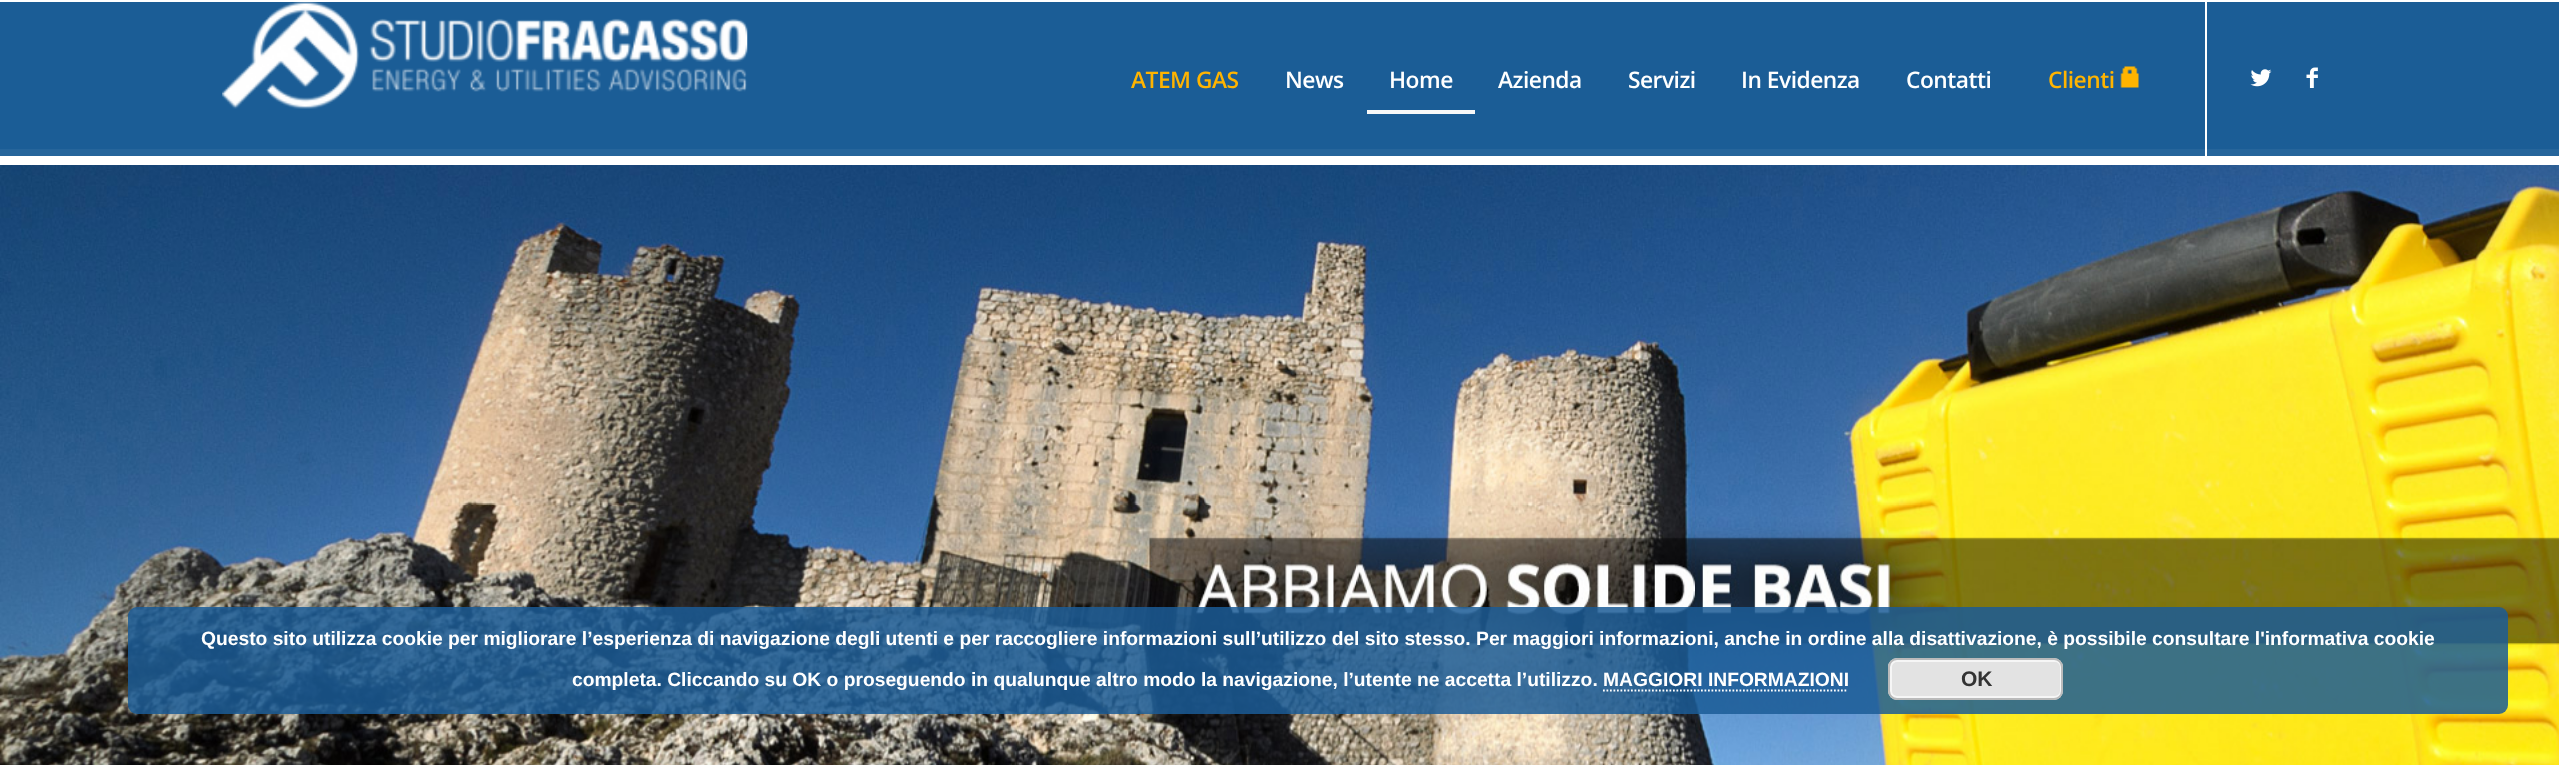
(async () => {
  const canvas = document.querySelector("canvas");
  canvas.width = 2559;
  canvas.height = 765;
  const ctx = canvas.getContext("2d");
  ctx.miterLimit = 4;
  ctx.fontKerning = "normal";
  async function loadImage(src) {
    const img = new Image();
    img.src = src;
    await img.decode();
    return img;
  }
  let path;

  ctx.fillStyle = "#1b5d96";
  ctx.fillRect(0, 0, 2559, 765);
  ctx.fillStyle = "#ffffff";
  ctx.fillRect(0, 0, 2559, 2);
  ctx.drawImage(await loadImage("img/1.png"), 222, 2, 526, 107);
  for (const [x, y, w, h, color] of [
    [0, 149, 2559, 7, "#26659b"],
    [2205, 2, 2, 154, "#ffffff"],
    [1367, 110, 108, 4, "#f8f8f8"],
  ]) {
    ctx.fillStyle = color;
    ctx.fillRect(x, y, w, h);
  }
  ctx.drawImage(await loadImage("img/2.png"), 2120, 66, 19, 22);
  ctx.drawImage(await loadImage("img/3.png"), 2250, 69, 22, 18);
  ctx.drawImage(await loadImage("img/4.png"), 2306, 67, 12, 21);
  ctx.fillStyle = "#ffffff";
  ctx.fillRect(0, 156, 2559, 9);
  ctx.drawImage(await loadImage("img/5.png"), 0, 165, 2559, 600);
  ctx.fillStyle = "rgba(27, 92, 151, 0.85)";
  ctx.beginPath();
  ctx.roundRect(128, 607, 2380, 107, 9);
  ctx.fill();
  ctx.fillStyle = "#e3e3e3";
  ctx.beginPath();
  ctx.roundRect(1888, 658, 175, 42, 9);
  ctx.fill();
  ctx.beginPath();
  ctx.roundRect(1891, 661, 170, 36, 6);
  ctx.strokeStyle = "#f6f6f6";
  ctx.lineWidth = 2;
  ctx.stroke();
  ctx.beginPath();
  ctx.roundRect(1889, 659, 173, 40, 8);
  ctx.strokeStyle = "#bbbbbb";
  ctx.stroke();
  path = new Path2D("M1603 690.5H1848");
  ctx.strokeStyle = "#ffffff";
  ctx.lineWidth = 1.8;
  ctx.setLineDash([1.75, 1.75]);
  ctx.stroke(path);
  ctx.letterSpacing = "-0.5px";
  ctx.font = "600 22.75px Open Sans";
  ctx.fillStyle = "#ffb400";
  ctx.fillText("ATEM GAS", 1131, 88);
  ctx.fillStyle = "#ffffff";
  for (const [text, x, y] of [
    ["News", 1285, 88],
    ["Home", 1389, 88],
    ["Azienda", 1498, 88],
    ["Servizi", 1628, 88],
    ["In Evidenza", 1741, 88],
    ["Contatti", 1906, 88],
  ]) {
    ctx.fillText(text, x, y);
  }
  ctx.fillStyle = "#ffb400";
  ctx.fillText("Clienti", 2048, 88);
  ctx.letterSpacing = "0px";
  ctx.font = "bold 19.25px Liberation Sans";
  ctx.fillStyle = "#ffffff";
  ctx.fillText("Questo sito utilizza cookie per migliorare l’esperienza di navigazione degli utenti e per raccogliere informazioni sull’utilizzo del sito stesso. Per maggiori informazioni, anche in ordine alla disattivazione, è possibile consultare l'informativa cookie", 201, 645);
  ctx.fillText("completa. Cliccando su OK o proseguendo in qualunque altro modo la navigazione, l’utente ne accetta l’utilizzo. MAGGIORI INFORMAZIONI", 572, 686);
  ctx.font = "bold 21px Liberation Sans";
  ctx.fillStyle = "#333333";
  ctx.fillText("OK", 1961, 686);
})();
